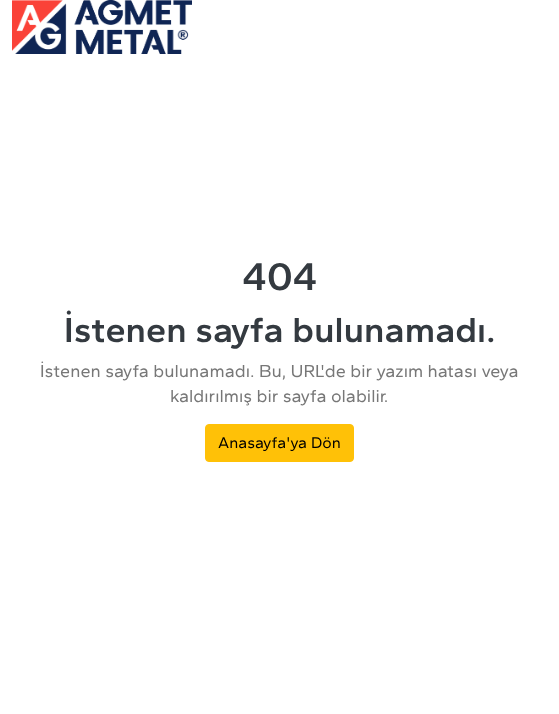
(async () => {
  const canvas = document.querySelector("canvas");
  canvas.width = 559;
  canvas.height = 714;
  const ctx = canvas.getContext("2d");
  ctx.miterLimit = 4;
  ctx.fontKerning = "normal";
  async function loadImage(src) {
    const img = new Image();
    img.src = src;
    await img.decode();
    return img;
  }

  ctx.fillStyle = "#ffffff";
  ctx.fillRect(0, 0, 559, 714);
  ctx.drawImage(await loadImage("img/1.png"), 12, 0, 180, 54);
  ctx.fillStyle = "#ffc107";
  ctx.beginPath();
  ctx.roundRect(205.5, 424.5, 148, 37, 3.5);
  ctx.fill();
  ctx.strokeStyle = "#ffc107";
  ctx.stroke();
  ctx.font = "600 40px Gantari";
  ctx.fillStyle = "#343a40";
  ctx.fillText("404", 242, 290);
  ctx.font = "600 36px Gantari";
  ctx.fillText("İstenen sayfa bulunamadı.", 64, 342);
  ctx.font = "18px Gantari";
  ctx.fillStyle = "#777777";
  ctx.fillText("İstenen sayfa bulunamadı. Bu, URL'de bir yazım hatası veya", 40, 377);
  ctx.fillText("kaldırılmış bir sayfa olabilir.", 170, 402);
  ctx.font = "16px Gantari";
  ctx.fillStyle = "#000000";
  ctx.fillText("Anasayfa'ya Dön", 218, 448);
})();
